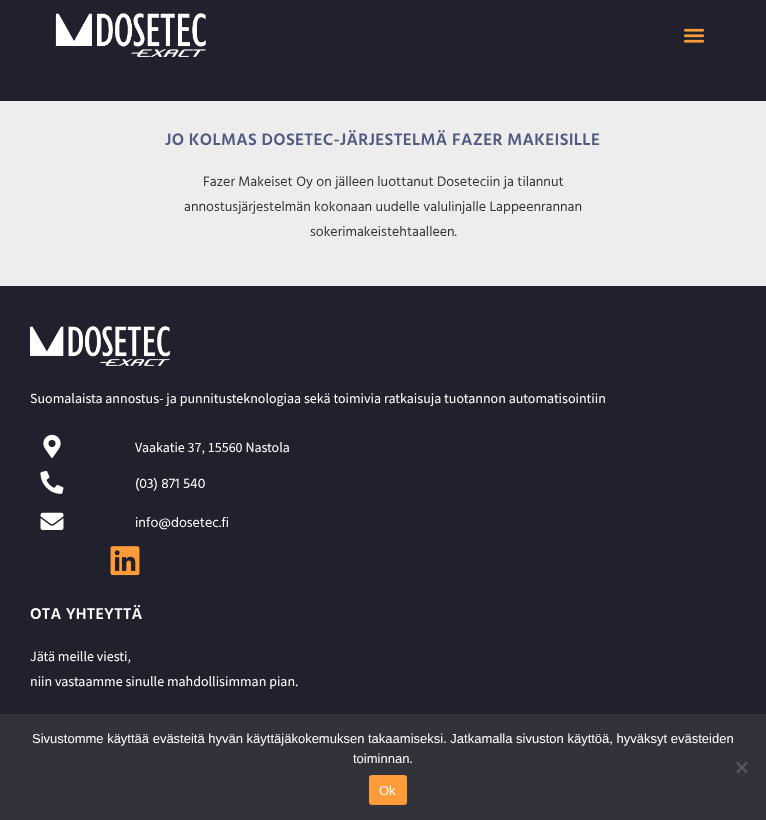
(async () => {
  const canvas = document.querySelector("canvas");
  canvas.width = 766;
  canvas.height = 820;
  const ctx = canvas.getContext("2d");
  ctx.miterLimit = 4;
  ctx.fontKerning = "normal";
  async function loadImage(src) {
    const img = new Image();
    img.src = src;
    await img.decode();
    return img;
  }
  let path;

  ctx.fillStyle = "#ededed";
  ctx.fillRect(0, 0, 766, 820);
  ctx.fillStyle = "#21212e";
  ctx.fillRect(0, 0, 766, 101);
  ctx.drawImage(await loadImage("img/1.png"), 55, 13, 151, 44);
  ctx.drawImage(await loadImage("img/2.png"), 683, 28, 22, 15);
  ctx.fillRect(0, 286, 766, 428);
  ctx.drawImage(await loadImage("img/3.png"), 30, 326, 140, 40);
  ctx.drawImage(await loadImage("img/4.png"), 43, 434, 18, 24);
  ctx.drawImage(await loadImage("img/5.png"), 40, 470, 24, 24);
  ctx.drawImage(await loadImage("img/6.png"), 40, 512, 24, 18);
  ctx.drawImage(await loadImage("img/7.png"), 110, 546, 30, 30);
  ctx.fillStyle = "#32323a";
  ctx.fillRect(0, 714, 766, 106);
  ctx.fillStyle = "#59595d";
  path = new Path2D("M746.5 761.5L748 763L737.5 773.5L736 772Z");
  ctx.fill(path);
  path = new Path2D("M736 763L737.5 761.5L748 772L746.5 773.5Z");
  ctx.fill(path);
  ctx.fillStyle = "#ff9c39";
  ctx.beginPath();
  ctx.roundRect(369, 775, 38, 30, 3);
  ctx.fill();
  ctx.letterSpacing = "0.3px";
  ctx.font = "600 17px Hind Guntur";
  ctx.fillStyle = "#515a81";
  ctx.fillText("JO KOLMAS DOSETEC-JÄRJESTELMÄ FAZER MAKEISILLE", 165, 145);
  ctx.letterSpacing = "0px";
  ctx.font = "14px Hind Guntur";
  ctx.fillStyle = "#343434";
  for (const [text, x, y] of [
    ["Fazer Makeiset Oy on jälleen luottanut Doseteciin ja tilannut", 203, 186],
    ["annostusjärjestelmän kokonaan uudelle valulinjalle Lappeenrannan", 184, 211],
    ["sokerimakeistehtaalleen.", 310, 236],
  ]) {
    ctx.fillText(text, x, y);
  }
  ctx.font = "14px Source Sans Pro";
  ctx.fillStyle = "#ffffff";
  ctx.fillText("Suomalaista annostus- ja punnitusteknologiaa sekä toimivia ratkaisuja tuotannon automatisointiin", 30, 403);
  ctx.fillText("Vaakatie 37, 15560 Nastola", 135, 452);
  ctx.font = "14px Hind Guntur";
  ctx.fillText("(03) 871 540", 135, 488);
  ctx.fillText("info@dosetec.fi", 135, 527);
  ctx.letterSpacing = "0.25px";
  ctx.font = "600 16px Hind Guntur";
  ctx.fillText("OTA YHTEYTTÄ", 30, 619);
  ctx.letterSpacing = "0px";
  ctx.font = "14px Source Sans Pro";
  ctx.fillText("Jätä meille viesti,", 30, 661);
  ctx.fillText("niin vastaamme sinulle mahdollisimman pian.", 30, 686);
  ctx.font = "13px Liberation Sans";
  for (const [text, x, y] of [
    ["Sivustomme käyttää evästeitä hyvän käyttäjäkokemuksen takaamiseksi. Jatkamalla sivuston käyttöä, hyväksyt evästeiden", 32, 743],
    ["toiminnan.", 353, 763],
    ["Ok", 379, 795],
  ]) {
    ctx.fillText(text, x, y);
  }
})();
